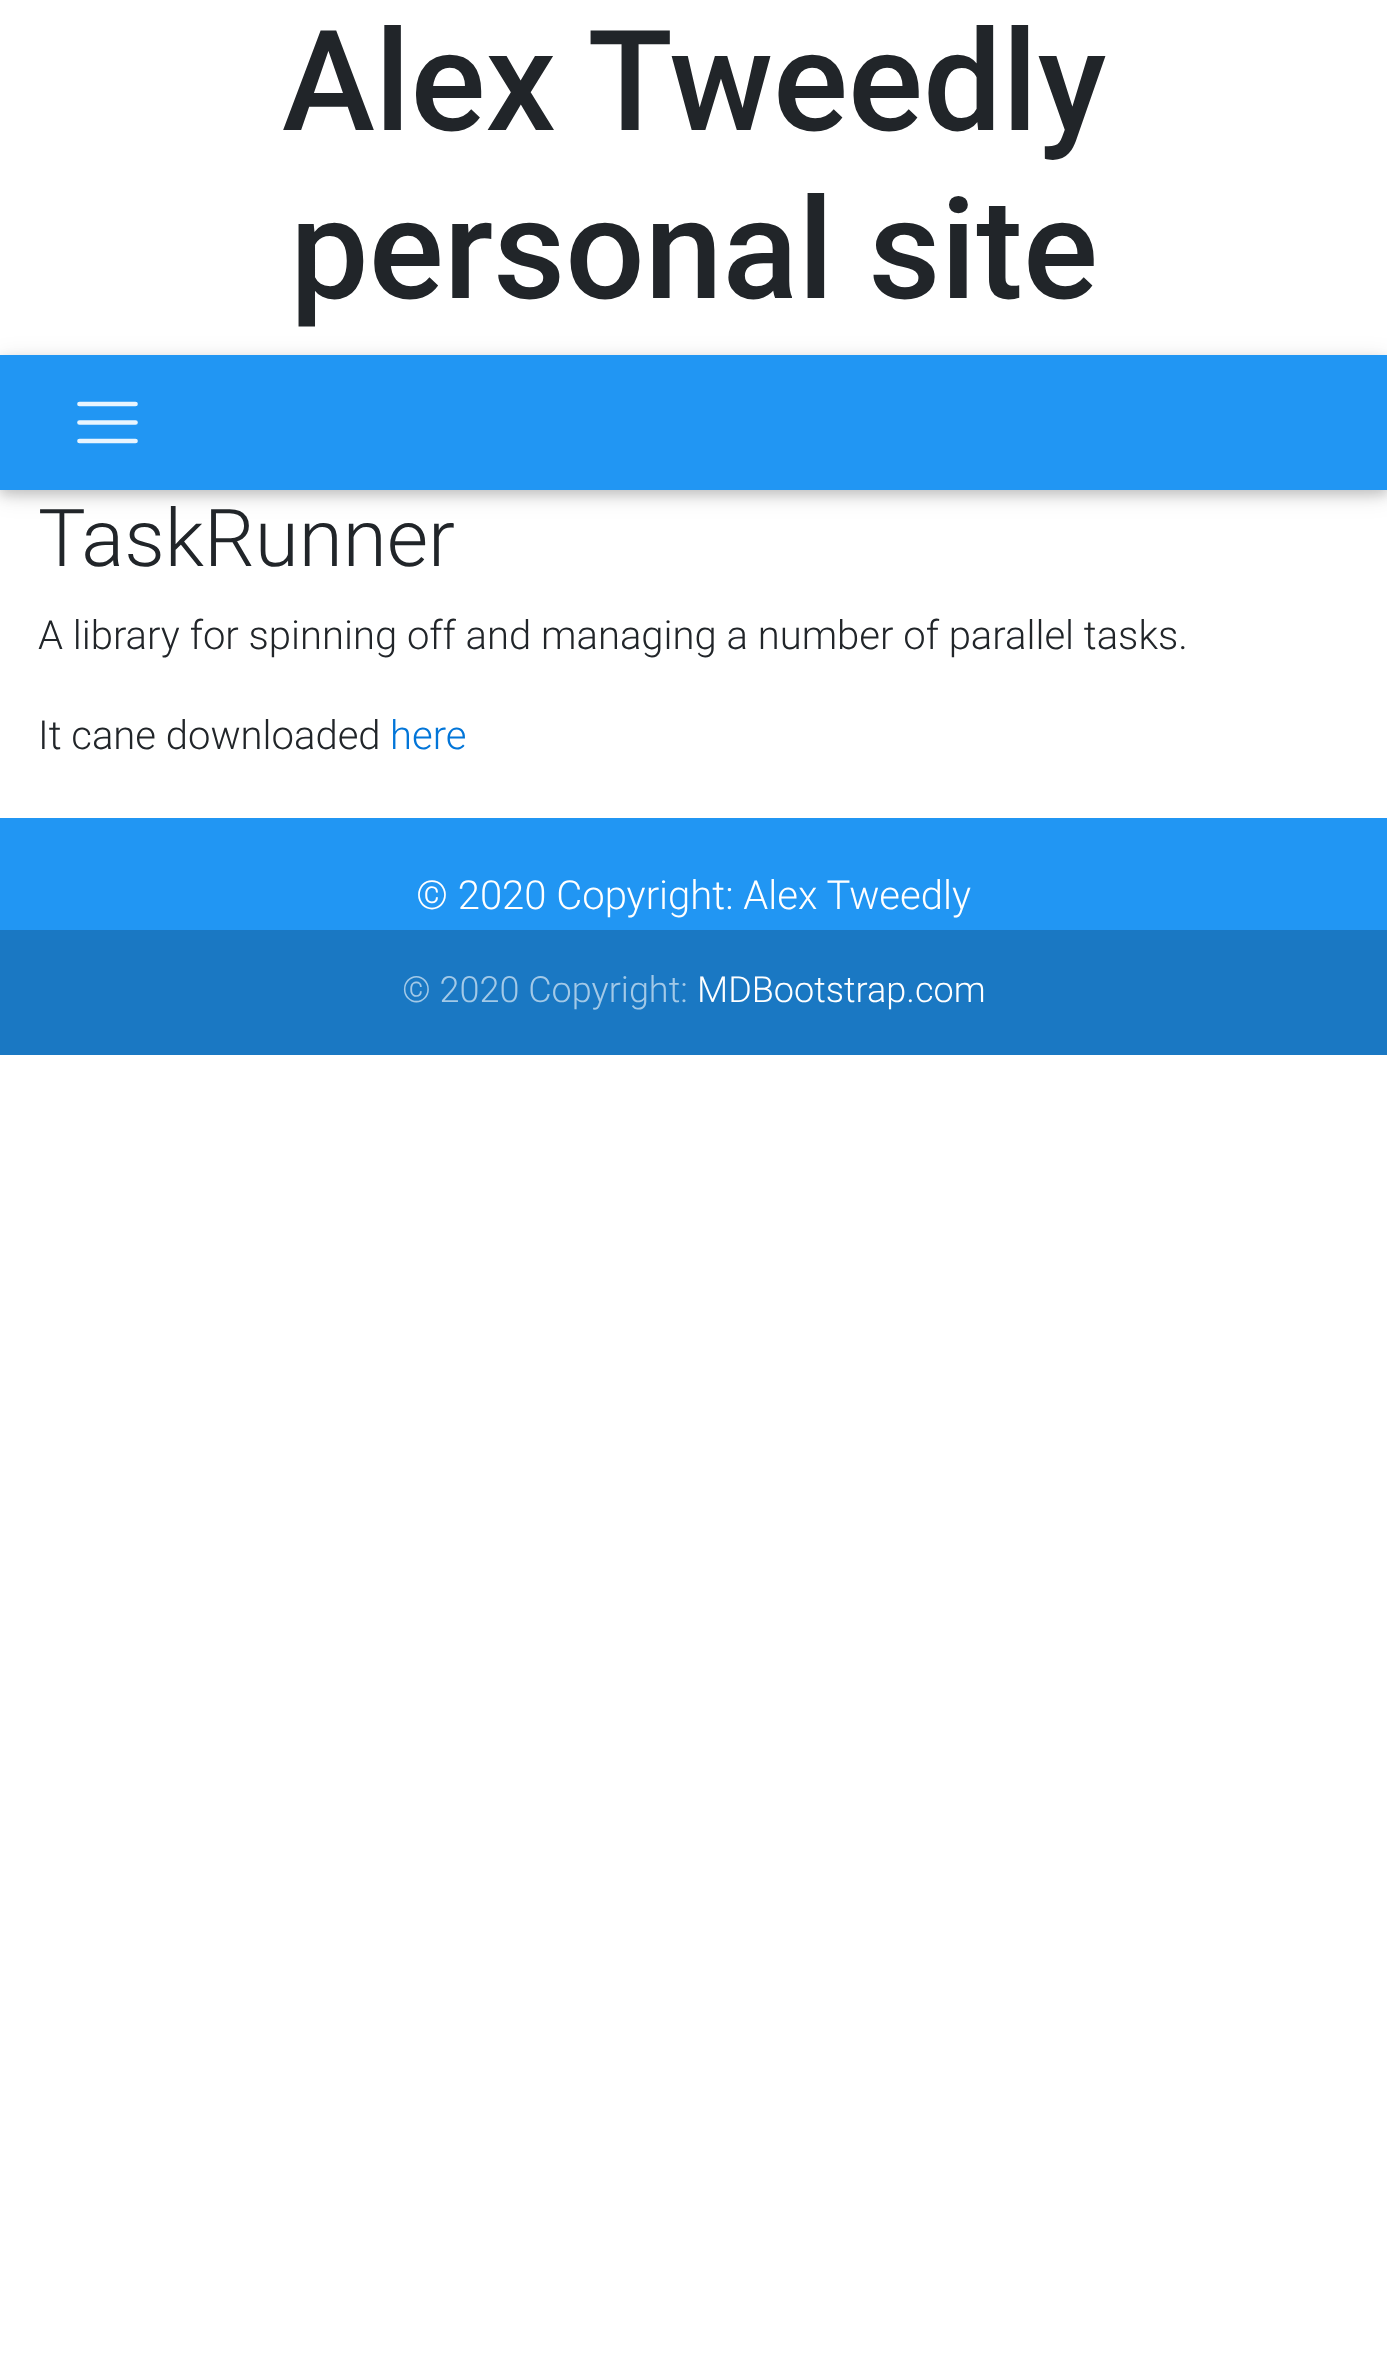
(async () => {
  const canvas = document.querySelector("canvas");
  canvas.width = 1387;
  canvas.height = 2371;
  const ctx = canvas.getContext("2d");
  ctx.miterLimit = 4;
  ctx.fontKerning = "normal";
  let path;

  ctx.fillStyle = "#ffffff";
  ctx.fillRect(0, 0, 1387, 2371);
  ctx.fillStyle = "rgba(0, 0, 0, 0.12)";
  ctx.filter = "blur(12.5px)";
  ctx.beginPath();
  ctx.rect(0, 360, 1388, 135);
  ctx.fill();
  ctx.filter = "none";
  ctx.fillStyle = "rgba(0, 0, 0, 0.16)";
  ctx.filter = "blur(6px)";
  ctx.beginPath();
  ctx.rect(0, 360, 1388, 135);
  ctx.fill();
  ctx.filter = "none";
  ctx.fillStyle = "#2196f3";
  ctx.fillRect(0, 355, 1387, 135);
  path = new Path2D("M79.5 404H135.5M79.5 422.5H135.5M79.5 441H135.5");
  ctx.strokeStyle = "#e9f5fe";
  ctx.lineWidth = 4.7;
  ctx.lineCap = "round";
  ctx.stroke(path);
  ctx.fillRect(0, 818, 1387, 112);
  ctx.fillStyle = "#1a78c3";
  ctx.fillRect(0, 930, 1387, 125);
  ctx.font = "500 140px Roboto";
  ctx.fillStyle = "#212529";
  ctx.fillText("Alex Tweedly", 282, 130);
  ctx.fillText("personal site", 290, 298);
  ctx.font = "300 80px Roboto";
  ctx.fillText("TaskRunner", 38, 566);
  ctx.font = "300 40px Roboto";
  ctx.fillText("A library for spinning off and managing a number of parallel tasks.", 38, 649);
  ctx.fillText("It cane downloaded", 38, 749);
  ctx.fillStyle = "#0275d8";
  ctx.fillText("here", 390, 749);
  ctx.fillStyle = "#ffffff";
  ctx.fillText("© 2020 Copyright: Alex Tweedly", 416, 909);
  ctx.font = "300 36px Roboto";
  ctx.fillStyle = "#a3c9e7";
  ctx.fillText("© 2020 Copyright:", 402, 1002);
  ctx.fillStyle = "#ffffff";
  ctx.fillText("MDBootstrap.com", 697, 1002);
})();
